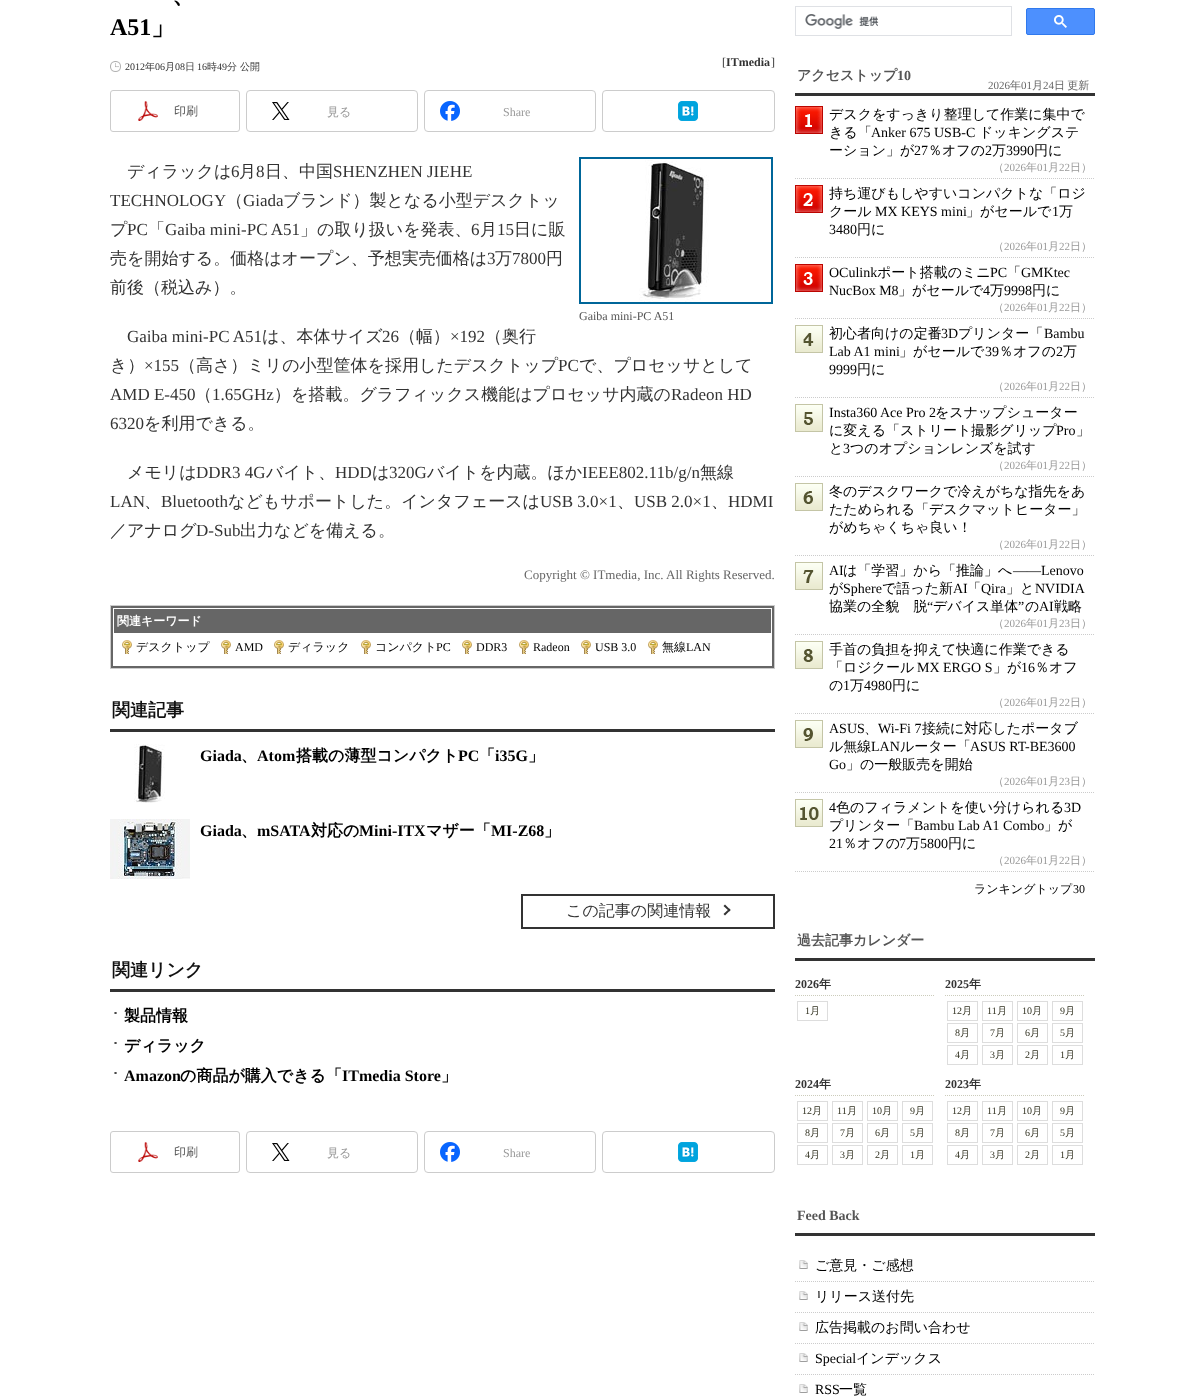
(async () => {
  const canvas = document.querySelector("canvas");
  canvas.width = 1199;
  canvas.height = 1396;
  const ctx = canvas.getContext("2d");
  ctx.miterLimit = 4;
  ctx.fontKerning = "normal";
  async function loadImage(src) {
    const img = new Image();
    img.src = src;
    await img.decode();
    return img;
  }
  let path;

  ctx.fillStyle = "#ffffff";
  ctx.fillRect(0, 0, 1199, 1396);
  ctx.drawImage(await loadImage("img/1.png"), 110, 61, 11, 11);
  ctx.drawImage(await loadImage("img/2.png"), 138, 101, 20, 20);
  ctx.beginPath();
  ctx.roundRect(110.5, 90.5, 129, 41, 2.5);
  ctx.strokeStyle = "#cccccc";
  ctx.stroke();
  ctx.drawImage(await loadImage("img/3.png"), 272, 102, 18, 18);
  ctx.beginPath();
  ctx.roundRect(246.5, 90.5, 171, 41, 3.5);
  ctx.stroke();
  ctx.drawImage(await loadImage("img/4.png"), 440, 101, 20, 20);
  ctx.beginPath();
  ctx.roundRect(424.5, 90.5, 171, 41, 3.5);
  ctx.stroke();
  ctx.drawImage(await loadImage("img/5.png"), 678, 101, 20, 20);
  ctx.beginPath();
  ctx.roundRect(602.5, 90.5, 172, 41, 3.5);
  ctx.stroke();
  ctx.strokeStyle = "#006699";
  ctx.lineWidth = 2;
  ctx.strokeRect(580, 158, 192, 145);
  ctx.drawImage(await loadImage("img/6.png"), 639, 160, 70, 142);
  ctx.strokeStyle = "#cccccc";
  ctx.lineWidth = 1;
  ctx.strokeRect(110.5, 605.5, 664, 63);
  ctx.strokeStyle = "#666666";
  ctx.lineWidth = 2;
  ctx.strokeRect(112, 607, 661, 60);
  ctx.fillStyle = "#666666";
  ctx.fillRect(114, 609, 657, 24);
  ctx.drawImage(await loadImage("img/7.png"), 122, 640, 10, 14);
  ctx.drawImage(await loadImage("img/7.png"), 221, 640, 10, 14);
  ctx.drawImage(await loadImage("img/7.png"), 274, 640, 10, 14);
  ctx.drawImage(await loadImage("img/7.png"), 361, 640, 10, 14);
  ctx.drawImage(await loadImage("img/7.png"), 462, 640, 10, 14);
  ctx.drawImage(await loadImage("img/7.png"), 519, 640, 10, 14);
  ctx.drawImage(await loadImage("img/7.png"), 581, 640, 10, 14);
  ctx.drawImage(await loadImage("img/7.png"), 648, 640, 10, 14);
  ctx.fillStyle = "#333333";
  ctx.fillRect(110, 729, 665, 3);
  ctx.drawImage(await loadImage("img/8.png"), 134, 744, 31, 59);
  ctx.drawImage(await loadImage("img/9.png"), 110, 819, 80, 60);
  ctx.strokeStyle = "#333333";
  ctx.strokeRect(522, 895, 252, 33);
  path = new Path2D("M723.5 906L725 904.5L730.5 910L729.5 911.5Z");
  ctx.fill(path);
  path = new Path2D("M723.5 914L729.5 908.5L730.5 910L725 915.5Z");
  ctx.fill(path);
  ctx.fillRect(110, 989, 665, 3);
  ctx.drawImage(await loadImage("img/10.png"), 114, 1012, 3, 2);
  ctx.drawImage(await loadImage("img/10.png"), 114, 1042, 3, 2);
  ctx.drawImage(await loadImage("img/10.png"), 114, 1072, 3, 2);
  ctx.drawImage(await loadImage("img/2.png"), 138, 1142, 20, 20);
  ctx.beginPath();
  ctx.roundRect(110.5, 1131.5, 129, 41, 2.5);
  ctx.strokeStyle = "#cccccc";
  ctx.lineWidth = 1;
  ctx.stroke();
  ctx.drawImage(await loadImage("img/3.png"), 272, 1143, 18, 18);
  ctx.beginPath();
  ctx.roundRect(246.5, 1131.5, 171, 41, 3.5);
  ctx.stroke();
  ctx.drawImage(await loadImage("img/4.png"), 440, 1142, 20, 20);
  ctx.beginPath();
  ctx.roundRect(424.5, 1131.5, 171, 41, 3.5);
  ctx.stroke();
  ctx.drawImage(await loadImage("img/5.png"), 678, 1142, 20, 20);
  ctx.beginPath();
  ctx.roundRect(602.5, 1131.5, 172, 41, 3.5);
  ctx.stroke();
  ctx.strokeStyle = "#dfe1e5";
  ctx.strokeRect(795.5, 6.5, 216, 29);
  ctx.drawImage(await loadImage("img/11.png"), 805, 14, 74, 15);
  ctx.fillStyle = "#4d90fe";
  ctx.beginPath();
  ctx.roundRect(1026.5, 8.5, 68, 26, 1.5);
  ctx.fill();
  ctx.strokeStyle = "#3079ed";
  ctx.stroke();
  ctx.drawImage(await loadImage("img/12.png"), 1054, 15, 13, 13);
  ctx.fillStyle = "#333333";
  ctx.fillRect(795, 93, 300, 3);
  path = new Path2D("M795 178.5H1095");
  ctx.strokeStyle = "#cccccc";
  ctx.setLineDash([1, 1]);
  ctx.stroke(path);
  ctx.drawImage(await loadImage("img/13.png"), 795, 106, 28, 28);
  path = new Path2D("M795 257.5H1095");
  ctx.stroke(path);
  ctx.drawImage(await loadImage("img/14.png"), 795, 185, 28, 28);
  path = new Path2D("M795 318.5H1095");
  ctx.stroke(path);
  ctx.drawImage(await loadImage("img/15.png"), 795, 264, 28, 28);
  path = new Path2D("M795 397.5H1095");
  ctx.stroke(path);
  ctx.drawImage(await loadImage("img/16.png"), 795, 325, 28, 28);
  path = new Path2D("M795 476.5H1095");
  ctx.stroke(path);
  ctx.drawImage(await loadImage("img/17.png"), 795, 404, 28, 28);
  path = new Path2D("M795 555.5H1095");
  ctx.stroke(path);
  ctx.drawImage(await loadImage("img/18.png"), 795, 483, 28, 28);
  path = new Path2D("M795 634.5H1095");
  ctx.stroke(path);
  ctx.drawImage(await loadImage("img/19.png"), 795, 562, 28, 28);
  path = new Path2D("M795 713.5H1095");
  ctx.stroke(path);
  ctx.drawImage(await loadImage("img/20.png"), 795, 641, 28, 28);
  path = new Path2D("M795 792.5H1095");
  ctx.stroke(path);
  ctx.drawImage(await loadImage("img/21.png"), 795, 720, 28, 28);
  path = new Path2D("M795 871.5H1095");
  ctx.stroke(path);
  ctx.drawImage(await loadImage("img/22.png"), 795, 799, 28, 28);
  ctx.fillRect(795, 958, 300, 3);
  path = new Path2D("M795 995.5H935");
  ctx.strokeStyle = "#ccccbb";
  ctx.stroke(path);
  ctx.strokeStyle = "#dddddd";
  ctx.setLineDash([]);
  ctx.strokeRect(797.5, 1001.5, 30, 19);
  path = new Path2D("M945 995.5H1085");
  ctx.strokeStyle = "#ccccbb";
  ctx.setLineDash([1, 1]);
  ctx.stroke(path);
  ctx.strokeStyle = "#dddddd";
  ctx.setLineDash([]);
  ctx.strokeRect(947.5, 1001.5, 30, 19);
  ctx.strokeRect(982.5, 1001.5, 30, 19);
  ctx.strokeRect(1017.5, 1001.5, 30, 19);
  ctx.strokeRect(1052.5, 1001.5, 30, 19);
  ctx.strokeRect(947.5, 1023.5, 30, 19);
  ctx.strokeRect(982.5, 1023.5, 30, 19);
  ctx.strokeRect(1017.5, 1023.5, 30, 19);
  ctx.strokeRect(1052.5, 1023.5, 30, 19);
  ctx.strokeRect(947.5, 1045.5, 30, 19);
  ctx.strokeRect(982.5, 1045.5, 30, 19);
  ctx.strokeRect(1017.5, 1045.5, 30, 19);
  ctx.strokeRect(1052.5, 1045.5, 30, 19);
  path = new Path2D("M795 1095.5H935");
  ctx.strokeStyle = "#ccccbb";
  ctx.setLineDash([1, 1]);
  ctx.stroke(path);
  ctx.strokeStyle = "#dddddd";
  ctx.setLineDash([]);
  ctx.strokeRect(797.5, 1101.5, 30, 19);
  ctx.strokeRect(832.5, 1101.5, 30, 19);
  ctx.strokeRect(867.5, 1101.5, 30, 19);
  ctx.strokeRect(902.5, 1101.5, 30, 19);
  ctx.strokeRect(797.5, 1123.5, 30, 19);
  ctx.strokeRect(832.5, 1123.5, 30, 19);
  ctx.strokeRect(867.5, 1123.5, 30, 19);
  ctx.strokeRect(902.5, 1123.5, 30, 19);
  ctx.strokeRect(797.5, 1145.5, 30, 19);
  ctx.strokeRect(832.5, 1145.5, 30, 19);
  ctx.strokeRect(867.5, 1145.5, 30, 19);
  ctx.strokeRect(902.5, 1145.5, 30, 19);
  path = new Path2D("M945 1095.5H1085");
  ctx.strokeStyle = "#ccccbb";
  ctx.setLineDash([1, 1]);
  ctx.stroke(path);
  ctx.strokeStyle = "#dddddd";
  ctx.setLineDash([]);
  ctx.strokeRect(947.5, 1101.5, 30, 19);
  ctx.strokeRect(982.5, 1101.5, 30, 19);
  ctx.strokeRect(1017.5, 1101.5, 30, 19);
  ctx.strokeRect(1052.5, 1101.5, 30, 19);
  ctx.strokeRect(947.5, 1123.5, 30, 19);
  ctx.strokeRect(982.5, 1123.5, 30, 19);
  ctx.strokeRect(1017.5, 1123.5, 30, 19);
  ctx.strokeRect(1052.5, 1123.5, 30, 19);
  ctx.strokeRect(947.5, 1145.5, 30, 19);
  ctx.strokeRect(982.5, 1145.5, 30, 19);
  ctx.strokeRect(1017.5, 1145.5, 30, 19);
  ctx.strokeRect(1052.5, 1145.5, 30, 19);
  ctx.fillRect(795, 1233, 300, 3);
  ctx.drawImage(await loadImage("img/23.png"), 799, 1260, 9, 9);
  path = new Path2D("M795 1281.5H1095");
  ctx.strokeStyle = "#cccccc";
  ctx.setLineDash([1, 1]);
  ctx.stroke(path);
  ctx.drawImage(await loadImage("img/23.png"), 799, 1291, 9, 9);
  path = new Path2D("M795 1312.5H1095");
  ctx.stroke(path);
  ctx.drawImage(await loadImage("img/23.png"), 799, 1322, 9, 9);
  path = new Path2D("M795 1343.5H1095");
  ctx.stroke(path);
  ctx.drawImage(await loadImage("img/23.png"), 799, 1353, 9, 9);
  path = new Path2D("M795 1374.5H1095");
  ctx.stroke(path);
  ctx.drawImage(await loadImage("img/23.png"), 799, 1384, 9, 9);
  ctx.font = "bold 24px WenQuanYi Zen Hei";
  ctx.fillStyle = "#000000";
  ctx.fillText("、", 172, 3);
  ctx.font = "bold 24px Liberation Serif";
  ctx.fillText("A51", 110, 35);
  ctx.font = "bold 24px WenQuanYi Zen Hei";
  ctx.fillText("」", 151, 35);
  ctx.font = "10px Liberation Serif";
  ctx.fillStyle = "#333333";
  ctx.fillText("2012", 125, 70);
  ctx.font = "500 10px WenQuanYi Zen Hei";
  ctx.fillText("年", 145, 70);
  ctx.font = "10px Liberation Serif";
  ctx.fillText("06", 155, 70);
  ctx.font = "500 10px WenQuanYi Zen Hei";
  ctx.fillText("月", 165, 70);
  ctx.font = "10px Liberation Serif";
  ctx.fillText("08", 175, 70);
  ctx.font = "500 10px WenQuanYi Zen Hei";
  ctx.fillText("日", 185, 70);
  ctx.font = "10px Liberation Serif";
  ctx.fillText("16", 197, 70);
  ctx.font = "500 10px WenQuanYi Zen Hei";
  ctx.fillText("時", 207, 70);
  ctx.font = "10px Liberation Serif";
  ctx.fillText("49", 217, 70);
  ctx.font = "500 10px WenQuanYi Zen Hei";
  ctx.fillText("分 公開", 227, 70);
  ctx.font = "12px Liberation Serif";
  ctx.fillText("[", 722, 66);
  ctx.font = "bold 12px Liberation Serif";
  ctx.fillText("ITmedia", 726, 66);
  ctx.font = "12px Liberation Serif";
  ctx.fillText("]", 771, 66);
  ctx.font = "500 12px WenQuanYi Zen Hei";
  ctx.fillStyle = "#555555";
  ctx.fillText("印刷", 174, 115);
  ctx.fillStyle = "#999999";
  ctx.fillText("見る", 327, 116);
  ctx.font = "12px Liberation Serif";
  ctx.fillText("Share", 503, 116);
  ctx.font = "500 17px WenQuanYi Zen Hei";
  ctx.fillStyle = "#333333";
  ctx.fillText("ディラックは", 127, 177);
  ctx.font = "17px Liberation Serif";
  ctx.fillText("6", 231, 177);
  ctx.font = "500 17px WenQuanYi Zen Hei";
  ctx.fillText("月", 239, 177);
  ctx.font = "17px Liberation Serif";
  ctx.fillText("8", 256, 177);
  ctx.font = "500 17px WenQuanYi Zen Hei";
  ctx.fillText("日、中国", 265, 177);
  ctx.font = "17px Liberation Serif";
  ctx.fillText("SHENZHEN JIEHE", 333, 177);
  ctx.fillText("TECHNOLOGY", 110, 206);
  ctx.font = "500 17px WenQuanYi Zen Hei";
  ctx.fillText("（", 226, 206);
  ctx.font = "17px Liberation Serif";
  ctx.fillText("Giada", 243, 206);
  ctx.font = "500 17px WenQuanYi Zen Hei";
  ctx.fillText("ブランド）製となる小型デスクトッ", 283, 206);
  ctx.fillText("プ", 110, 235);
  ctx.font = "17px Liberation Serif";
  ctx.fillText("PC", 127, 235);
  ctx.font = "500 17px WenQuanYi Zen Hei";
  ctx.fillText("「", 148, 235);
  ctx.font = "17px Liberation Serif";
  ctx.fillText("Gaiba mini-PC A51", 165, 235);
  ctx.font = "500 17px WenQuanYi Zen Hei";
  ctx.fillText("」の取り扱いを発表、", 300, 235);
  ctx.font = "17px Liberation Serif";
  ctx.fillText("6", 471, 235);
  ctx.font = "500 17px WenQuanYi Zen Hei";
  ctx.fillText("月", 480, 235);
  ctx.font = "17px Liberation Serif";
  ctx.fillText("15", 497, 235);
  ctx.font = "500 17px WenQuanYi Zen Hei";
  ctx.fillText("日に販", 514, 235);
  ctx.fillText("売を開始する。価格はオープン、予想実売価格は", 110, 264);
  ctx.font = "17px Liberation Serif";
  ctx.fillText("3", 487, 264);
  ctx.font = "500 17px WenQuanYi Zen Hei";
  ctx.fillText("万", 495, 264);
  ctx.font = "17px Liberation Serif";
  ctx.fillText("7800", 512, 264);
  ctx.font = "500 17px WenQuanYi Zen Hei";
  ctx.fillText("円", 546, 264);
  ctx.fillText("前後（税込み）。", 110, 293);
  ctx.font = "12px Liberation Serif";
  ctx.fillStyle = "#555555";
  ctx.fillText("Gaiba mini-PC A51", 579, 320);
  ctx.font = "17px Liberation Serif";
  ctx.fillStyle = "#333333";
  ctx.fillText("Gaiba mini-PC A51", 127, 342);
  ctx.font = "500 17px WenQuanYi Zen Hei";
  ctx.fillText("は、本体サイズ", 262, 342);
  ctx.font = "17px Liberation Serif";
  ctx.fillText("26", 382, 342);
  ctx.font = "500 17px WenQuanYi Zen Hei";
  ctx.fillText("（幅）", 399, 342);
  ctx.font = "17px Liberation Serif";
  ctx.fillText("×192", 450, 342);
  ctx.font = "500 17px WenQuanYi Zen Hei";
  ctx.fillText("（奥行", 485, 342);
  ctx.fillText("き）", 110, 371);
  ctx.font = "17px Liberation Serif";
  ctx.fillText("×155", 144, 371);
  ctx.font = "500 17px WenQuanYi Zen Hei";
  ctx.fillText("（高さ）ミリの小型筐体を採用したデスクトップ", 179, 371);
  ctx.font = "17px Liberation Serif";
  ctx.fillText("PC", 558, 371);
  ctx.font = "500 17px WenQuanYi Zen Hei";
  ctx.fillText("で、プロセッサとして", 579, 371);
  ctx.font = "17px Liberation Serif";
  ctx.fillText("AMD E-450", 110, 400);
  ctx.font = "500 17px WenQuanYi Zen Hei";
  ctx.fillText("（", 195, 400);
  ctx.font = "17px Liberation Serif";
  ctx.fillText("1.65GHz", 212, 400);
  ctx.font = "500 17px WenQuanYi Zen Hei";
  ctx.fillText("）を搭載。グラフィックス機能はプロセッサ内蔵の", 274, 400);
  ctx.font = "17px Liberation Serif";
  ctx.fillText("Radeon HD", 671, 400);
  ctx.fillText("6320", 110, 429);
  ctx.font = "500 17px WenQuanYi Zen Hei";
  ctx.fillText("を利用できる。", 144, 429);
  ctx.fillText("メモリは", 127, 478);
  ctx.font = "17px Liberation Serif";
  ctx.fillText("DDR3 4G", 196, 478);
  ctx.font = "500 17px WenQuanYi Zen Hei";
  ctx.fillText("バイト、", 266, 478);
  ctx.font = "17px Liberation Serif";
  ctx.fillText("HDD", 335, 478);
  ctx.font = "500 17px WenQuanYi Zen Hei";
  ctx.fillText("は", 372, 478);
  ctx.font = "17px Liberation Serif";
  ctx.fillText("320G", 389, 478);
  ctx.font = "500 17px WenQuanYi Zen Hei";
  ctx.fillText("バイトを内蔵。ほか", 427, 478);
  ctx.font = "17px Liberation Serif";
  ctx.fillText("IEEE802.11b/g/n", 582, 478);
  ctx.font = "500 17px WenQuanYi Zen Hei";
  ctx.fillText("無線", 700, 478);
  ctx.font = "17px Liberation Serif";
  ctx.fillText("LAN", 110, 507);
  ctx.fillText("Bluetooth", 161, 507);
  ctx.font = "500 17px WenQuanYi Zen Hei";
  ctx.fillText("などもサポートした。インタフェースは", 228, 507);
  ctx.font = "17px Liberation Serif";
  for (const [text, x, y] of [
    ["USB 3.0×1", 540, 507],
    ["USB 2.0×1", 634, 507],
    ["HDMI", 728, 507],
  ]) {
    ctx.fillText(text, x, y);
  }
  ctx.font = "500 17px WenQuanYi Zen Hei";
  for (const [text, x, y] of [
    ["、", 144, 507],
    ["、", 617, 507],
    ["、", 711, 507],
    ["／アナログ", 110, 536],
  ]) {
    ctx.fillText(text, x, y);
  }
  ctx.font = "17px Liberation Serif";
  ctx.fillText("D-Sub", 196, 536);
  ctx.font = "500 17px WenQuanYi Zen Hei";
  ctx.fillText("出力などを備える。", 240, 536);
  ctx.font = "13px Liberation Serif";
  ctx.fillStyle = "#666666";
  ctx.fillText("Copyright © ITmedia, Inc. All Rights Reserved.", 524, 579);
  ctx.font = "bold 12px WenQuanYi Zen Hei";
  ctx.fillStyle = "#ffffff";
  ctx.fillText("関連キーワード", 117, 625);
  ctx.font = "500 12px WenQuanYi Zen Hei";
  ctx.fillStyle = "#000000";
  ctx.fillText("デスクトップ", 136, 651);
  ctx.font = "12px Liberation Serif";
  ctx.fillText("AMD", 235, 651);
  ctx.font = "500 12px WenQuanYi Zen Hei";
  ctx.fillText("ディラック", 288, 651);
  ctx.fillText("コンパクト", 375, 651);
  ctx.font = "12px Liberation Serif";
  for (const [text, x, y] of [
    ["PC", 436, 651],
    ["DDR3", 476, 651],
    ["Radeon", 533, 651],
    ["USB 3.0", 595, 651],
  ]) {
    ctx.fillText(text, x, y);
  }
  ctx.font = "500 12px WenQuanYi Zen Hei";
  ctx.fillText("無線", 662, 651);
  ctx.font = "12px Liberation Serif";
  ctx.fillText("LAN", 686, 651);
  ctx.font = "bold 18px WenQuanYi Zen Hei";
  ctx.fillStyle = "#111111";
  ctx.fillText("関連記事", 112, 716);
  ctx.font = "bold 16px Liberation Serif";
  ctx.fillStyle = "#000000";
  ctx.fillText("Giada", 200, 761);
  ctx.font = "bold 16px WenQuanYi Zen Hei";
  ctx.fillText("、", 241, 761);
  ctx.font = "bold 16px Liberation Serif";
  ctx.fillText("Atom", 257, 761);
  ctx.font = "bold 16px WenQuanYi Zen Hei";
  ctx.fillText("搭載の薄型コンパクト", 296, 761);
  ctx.font = "bold 16px Liberation Serif";
  ctx.fillText("PC", 458, 761);
  ctx.font = "bold 16px WenQuanYi Zen Hei";
  ctx.fillText("「", 479, 761);
  ctx.font = "bold 16px Liberation Serif";
  ctx.fillText("i35G", 495, 761);
  ctx.font = "bold 16px WenQuanYi Zen Hei";
  ctx.fillText("」", 528, 761);
  ctx.font = "bold 16px Liberation Serif";
  ctx.fillText("Giada", 200, 836);
  ctx.font = "bold 16px WenQuanYi Zen Hei";
  ctx.fillText("、", 241, 836);
  ctx.font = "bold 16px Liberation Serif";
  ctx.fillText("mSATA", 257, 836);
  ctx.font = "bold 16px WenQuanYi Zen Hei";
  ctx.fillText("対応の", 311, 836);
  ctx.font = "bold 16px Liberation Serif";
  ctx.fillText("Mini-ITX", 359, 836);
  ctx.font = "bold 16px WenQuanYi Zen Hei";
  ctx.fillText("マザー「", 426, 836);
  ctx.font = "bold 16px Liberation Serif";
  ctx.fillText("MI-Z68", 491, 836);
  ctx.font = "bold 16px WenQuanYi Zen Hei";
  ctx.fillText("」", 544, 836);
  ctx.font = "500 16px WenQuanYi Zen Hei";
  ctx.fillStyle = "#333333";
  ctx.fillText("この記事の関連情報", 566, 916);
  ctx.font = "bold 18px WenQuanYi Zen Hei";
  ctx.fillStyle = "#111111";
  ctx.fillText("関連リンク", 112, 976);
  ctx.font = "bold 16px WenQuanYi Zen Hei";
  ctx.fillStyle = "#000000";
  ctx.fillText("製品情報", 124, 1021);
  ctx.fillText("ディラック", 124, 1051);
  ctx.font = "bold 16px Liberation Serif";
  ctx.fillText("Amazon", 124, 1081);
  ctx.font = "bold 16px WenQuanYi Zen Hei";
  ctx.fillText("の商品が購入できる「", 180, 1081);
  ctx.font = "bold 16px Liberation Serif";
  ctx.fillText("ITmedia Store", 342, 1081);
  ctx.font = "bold 16px WenQuanYi Zen Hei";
  ctx.fillText("」", 441, 1081);
  ctx.font = "500 12px WenQuanYi Zen Hei";
  ctx.fillStyle = "#555555";
  ctx.fillText("印刷", 174, 1156);
  ctx.fillStyle = "#999999";
  ctx.fillText("見る", 327, 1157);
  ctx.font = "12px Liberation Serif";
  ctx.fillText("Share", 503, 1157);
  ctx.font = "bold 14px WenQuanYi Zen Hei";
  ctx.fillStyle = "#555555";
  ctx.fillText("アクセストップ", 797, 80);
  ctx.font = "bold 14px Liberation Serif";
  ctx.fillText("10", 897, 80);
  ctx.font = "11px Liberation Serif";
  ctx.fillStyle = "#666666";
  ctx.fillText("2026", 988, 89);
  ctx.font = "500 11px WenQuanYi Zen Hei";
  ctx.fillText("年", 1010, 89);
  ctx.font = "11px Liberation Serif";
  ctx.fillText("01", 1021, 89);
  ctx.font = "500 11px WenQuanYi Zen Hei";
  ctx.fillText("月", 1032, 89);
  ctx.font = "11px Liberation Serif";
  ctx.fillText("24", 1043, 89);
  ctx.wordSpacing = "-1px";
  ctx.font = "500 11px WenQuanYi Zen Hei";
  ctx.fillText("日 更新", 1054, 89);
  ctx.wordSpacing = "0px";
  ctx.font = "500 14px WenQuanYi Zen Hei";
  ctx.fillStyle = "#000000";
  ctx.fillText("デスクをすっきり整理して作業に集中で", 829, 119);
  ctx.fillText("きる「", 829, 137);
  ctx.font = "14px Liberation Serif";
  ctx.fillText("Anker 675 USB-C", 871, 137);
  ctx.font = "500 14px WenQuanYi Zen Hei";
  ctx.fillText("ドッキングステ", 979, 137);
  ctx.fillText("ーション」が", 829, 155);
  ctx.font = "14px Liberation Serif";
  ctx.fillText("27", 914, 155);
  ctx.font = "500 14px WenQuanYi Zen Hei";
  ctx.fillText("％オフの", 928, 155);
  ctx.font = "14px Liberation Serif";
  ctx.fillText("2", 985, 155);
  ctx.font = "500 14px WenQuanYi Zen Hei";
  ctx.fillText("万", 992, 155);
  ctx.font = "14px Liberation Serif";
  ctx.fillText("3990", 1006, 155);
  ctx.font = "500 14px WenQuanYi Zen Hei";
  ctx.fillText("円に", 1034, 155);
  ctx.font = "500 11px WenQuanYi Zen Hei";
  ctx.fillStyle = "#999999";
  ctx.fillText("（", 993, 171);
  ctx.font = "11px Liberation Serif";
  ctx.fillText("2026", 1004, 171);
  ctx.font = "500 11px WenQuanYi Zen Hei";
  ctx.fillText("年", 1026, 171);
  ctx.font = "11px Liberation Serif";
  ctx.fillText("01", 1037, 171);
  ctx.font = "500 11px WenQuanYi Zen Hei";
  ctx.fillText("月", 1048, 171);
  ctx.font = "11px Liberation Serif";
  ctx.fillText("22", 1059, 171);
  ctx.font = "500 11px WenQuanYi Zen Hei";
  ctx.fillText("日）", 1070, 171);
  ctx.font = "500 14px WenQuanYi Zen Hei";
  ctx.fillStyle = "#000000";
  ctx.fillText("持ち運びもしやすいコンパクトな「ロジ", 829, 198);
  ctx.fillText("クール", 829, 216);
  ctx.font = "14px Liberation Serif";
  ctx.fillText("MX KEYS mini", 875, 216);
  ctx.font = "500 14px WenQuanYi Zen Hei";
  ctx.fillText("」がセールで", 966, 216);
  ctx.font = "14px Liberation Serif";
  ctx.fillText("1", 1052, 216);
  ctx.font = "500 14px WenQuanYi Zen Hei";
  ctx.fillText("万", 1059, 216);
  ctx.font = "14px Liberation Serif";
  ctx.fillText("3480", 829, 234);
  ctx.font = "500 14px WenQuanYi Zen Hei";
  ctx.fillText("円に", 857, 234);
  ctx.font = "500 11px WenQuanYi Zen Hei";
  ctx.fillStyle = "#999999";
  ctx.fillText("（", 993, 250);
  ctx.font = "11px Liberation Serif";
  ctx.fillText("2026", 1004, 250);
  ctx.font = "500 11px WenQuanYi Zen Hei";
  ctx.fillText("年", 1026, 250);
  ctx.font = "11px Liberation Serif";
  ctx.fillText("01", 1037, 250);
  ctx.font = "500 11px WenQuanYi Zen Hei";
  ctx.fillText("月", 1048, 250);
  ctx.font = "11px Liberation Serif";
  ctx.fillText("22", 1059, 250);
  ctx.font = "500 11px WenQuanYi Zen Hei";
  ctx.fillText("日）", 1070, 250);
  ctx.font = "14px Liberation Serif";
  ctx.fillStyle = "#000000";
  ctx.fillText("OCulink", 829, 277);
  ctx.font = "500 14px WenQuanYi Zen Hei";
  ctx.fillText("ポート搭載のミニ", 877, 277);
  ctx.font = "14px Liberation Serif";
  ctx.fillText("PC", 990, 277);
  ctx.font = "500 14px WenQuanYi Zen Hei";
  ctx.fillText("「", 1007, 277);
  ctx.font = "14px Liberation Serif";
  ctx.fillText("GMKtec", 1021, 277);
  ctx.fillText("NucBox M8", 829, 295);
  ctx.font = "500 14px WenQuanYi Zen Hei";
  ctx.fillText("」がセールで", 898, 295);
  ctx.font = "14px Liberation Serif";
  ctx.fillText("4", 983, 295);
  ctx.font = "500 14px WenQuanYi Zen Hei";
  ctx.fillText("万", 990, 295);
  ctx.font = "14px Liberation Serif";
  ctx.fillText("9998", 1004, 295);
  ctx.font = "500 14px WenQuanYi Zen Hei";
  ctx.fillText("円に", 1032, 295);
  ctx.font = "500 11px WenQuanYi Zen Hei";
  ctx.fillStyle = "#999999";
  ctx.fillText("（", 993, 311);
  ctx.font = "11px Liberation Serif";
  ctx.fillText("2026", 1004, 311);
  ctx.font = "500 11px WenQuanYi Zen Hei";
  ctx.fillText("年", 1026, 311);
  ctx.font = "11px Liberation Serif";
  ctx.fillText("01", 1037, 311);
  ctx.font = "500 11px WenQuanYi Zen Hei";
  ctx.fillText("月", 1048, 311);
  ctx.font = "11px Liberation Serif";
  ctx.fillText("22", 1059, 311);
  ctx.font = "500 11px WenQuanYi Zen Hei";
  ctx.fillText("日）", 1070, 311);
  ctx.font = "500 14px WenQuanYi Zen Hei";
  ctx.fillStyle = "#000000";
  ctx.fillText("初心者向けの定番", 829, 338);
  ctx.font = "14px Liberation Serif";
  ctx.fillText("3D", 941, 338);
  ctx.font = "500 14px WenQuanYi Zen Hei";
  ctx.fillText("プリンター「", 958, 338);
  ctx.font = "14px Liberation Serif";
  ctx.fillText("Bambu", 1044, 338);
  ctx.fillText("Lab A1 mini", 829, 356);
  ctx.font = "500 14px WenQuanYi Zen Hei";
  ctx.fillText("」がセールで", 899, 356);
  ctx.font = "14px Liberation Serif";
  ctx.fillText("39", 985, 356);
  ctx.font = "500 14px WenQuanYi Zen Hei";
  ctx.fillText("％オフの", 999, 356);
  ctx.font = "14px Liberation Serif";
  ctx.fillText("2", 1056, 356);
  ctx.font = "500 14px WenQuanYi Zen Hei";
  ctx.fillText("万", 1063, 356);
  ctx.font = "14px Liberation Serif";
  ctx.fillText("9999", 829, 374);
  ctx.font = "500 14px WenQuanYi Zen Hei";
  ctx.fillText("円に", 857, 374);
  ctx.font = "500 11px WenQuanYi Zen Hei";
  ctx.fillStyle = "#999999";
  ctx.fillText("（", 993, 390);
  ctx.font = "11px Liberation Serif";
  ctx.fillText("2026", 1004, 390);
  ctx.font = "500 11px WenQuanYi Zen Hei";
  ctx.fillText("年", 1026, 390);
  ctx.font = "11px Liberation Serif";
  ctx.fillText("01", 1037, 390);
  ctx.font = "500 11px WenQuanYi Zen Hei";
  ctx.fillText("月", 1048, 390);
  ctx.font = "11px Liberation Serif";
  ctx.fillText("22", 1059, 390);
  ctx.font = "500 11px WenQuanYi Zen Hei";
  ctx.fillText("日）", 1070, 390);
  ctx.font = "14px Liberation Serif";
  ctx.fillStyle = "#000000";
  ctx.fillText("Insta360 Ace Pro 2", 829, 417);
  ctx.font = "500 14px WenQuanYi Zen Hei";
  ctx.fillText("をスナップシューター", 935, 417);
  ctx.fillText("に変える「ストリート撮影グリップ", 829, 435);
  ctx.font = "14px Liberation Serif";
  ctx.fillText("Pro", 1056, 435);
  ctx.font = "500 14px WenQuanYi Zen Hei";
  ctx.fillText("」", 1076, 435);
  ctx.fillText("と", 829, 453);
  ctx.font = "14px Liberation Serif";
  ctx.fillText("3", 843, 453);
  ctx.font = "500 14px WenQuanYi Zen Hei";
  ctx.fillText("つのオプションレンズを試す", 850, 453);
  ctx.font = "500 11px WenQuanYi Zen Hei";
  ctx.fillStyle = "#999999";
  ctx.fillText("（", 993, 469);
  ctx.font = "11px Liberation Serif";
  ctx.fillText("2026", 1004, 469);
  ctx.font = "500 11px WenQuanYi Zen Hei";
  ctx.fillText("年", 1026, 469);
  ctx.font = "11px Liberation Serif";
  ctx.fillText("01", 1037, 469);
  ctx.font = "500 11px WenQuanYi Zen Hei";
  ctx.fillText("月", 1048, 469);
  ctx.font = "11px Liberation Serif";
  ctx.fillText("22", 1059, 469);
  ctx.font = "500 11px WenQuanYi Zen Hei";
  ctx.fillText("日）", 1070, 469);
  ctx.font = "500 14px WenQuanYi Zen Hei";
  ctx.fillStyle = "#000000";
  for (const [text, x, y] of [
    ["冬のデスクワークで冷えがちな指先をあ", 829, 496],
    ["たためられる「デスクマットヒーター」", 829, 514],
    ["がめちゃくちゃ良い！", 829, 532],
  ]) {
    ctx.fillText(text, x, y);
  }
  ctx.font = "500 11px WenQuanYi Zen Hei";
  ctx.fillStyle = "#999999";
  ctx.fillText("（", 993, 548);
  ctx.font = "11px Liberation Serif";
  ctx.fillText("2026", 1004, 548);
  ctx.font = "500 11px WenQuanYi Zen Hei";
  ctx.fillText("年", 1026, 548);
  ctx.font = "11px Liberation Serif";
  ctx.fillText("01", 1037, 548);
  ctx.font = "500 11px WenQuanYi Zen Hei";
  ctx.fillText("月", 1048, 548);
  ctx.font = "11px Liberation Serif";
  ctx.fillText("22", 1059, 548);
  ctx.font = "500 11px WenQuanYi Zen Hei";
  ctx.fillText("日）", 1070, 548);
  ctx.font = "14px Liberation Serif";
  ctx.fillStyle = "#000000";
  ctx.fillText("AI", 829, 575);
  ctx.font = "500 14px WenQuanYi Zen Hei";
  ctx.fillText("は「学習」から「推論」へ", 843, 575);
  ctx.font = "14px Liberation Serif";
  ctx.fillText("――Lenovo", 1013, 575);
  ctx.font = "500 14px WenQuanYi Zen Hei";
  ctx.fillText("が", 829, 593);
  ctx.font = "14px Liberation Serif";
  ctx.fillText("Sphere", 843, 593);
  ctx.font = "500 14px WenQuanYi Zen Hei";
  ctx.fillText("で語った新", 882, 593);
  ctx.font = "14px Liberation Serif";
  ctx.fillText("AI", 953, 593);
  ctx.font = "500 14px WenQuanYi Zen Hei";
  ctx.fillText("「", 967, 593);
  ctx.font = "14px Liberation Serif";
  ctx.fillText("Qira", 981, 593);
  ctx.font = "500 14px WenQuanYi Zen Hei";
  ctx.fillText("」と", 1006, 593);
  ctx.font = "14px Liberation Serif";
  ctx.fillText("NVIDIA", 1035, 593);
  ctx.font = "500 14px WenQuanYi Zen Hei";
  ctx.fillText("協業の全貌　脱", 829, 611);
  ctx.font = "14px Liberation Serif";
  ctx.fillText("“", 927, 611);
  ctx.font = "500 14px WenQuanYi Zen Hei";
  ctx.fillText("デバイス単体", 933, 611);
  ctx.font = "14px Liberation Serif";
  ctx.fillText("”", 1018, 611);
  ctx.font = "500 14px WenQuanYi Zen Hei";
  ctx.fillText("の", 1025, 611);
  ctx.font = "14px Liberation Serif";
  ctx.fillText("AI", 1039, 611);
  ctx.font = "500 14px WenQuanYi Zen Hei";
  ctx.fillText("戦略", 1054, 611);
  ctx.font = "500 11px WenQuanYi Zen Hei";
  ctx.fillStyle = "#999999";
  ctx.fillText("（", 993, 627);
  ctx.font = "11px Liberation Serif";
  ctx.fillText("2026", 1004, 627);
  ctx.font = "500 11px WenQuanYi Zen Hei";
  ctx.fillText("年", 1026, 627);
  ctx.font = "11px Liberation Serif";
  ctx.fillText("01", 1037, 627);
  ctx.font = "500 11px WenQuanYi Zen Hei";
  ctx.fillText("月", 1048, 627);
  ctx.font = "11px Liberation Serif";
  ctx.fillText("23", 1059, 627);
  ctx.font = "500 11px WenQuanYi Zen Hei";
  ctx.fillText("日）", 1070, 627);
  ctx.font = "500 14px WenQuanYi Zen Hei";
  ctx.fillStyle = "#000000";
  ctx.fillText("手首の負担を抑えて快適に作業できる", 829, 654);
  ctx.fillText("「ロジクール", 829, 672);
  ctx.font = "14px Liberation Serif";
  ctx.fillText("MX ERGO S", 917, 672);
  ctx.font = "500 14px WenQuanYi Zen Hei";
  ctx.fillText("」が", 993, 672);
  ctx.font = "14px Liberation Serif";
  ctx.fillText("16", 1021, 672);
  ctx.font = "500 14px WenQuanYi Zen Hei";
  ctx.fillText("％オフ", 1035, 672);
  ctx.fillText("の", 829, 690);
  ctx.font = "14px Liberation Serif";
  ctx.fillText("1", 843, 690);
  ctx.font = "500 14px WenQuanYi Zen Hei";
  ctx.fillText("万", 850, 690);
  ctx.font = "14px Liberation Serif";
  ctx.fillText("4980", 864, 690);
  ctx.font = "500 14px WenQuanYi Zen Hei";
  ctx.fillText("円に", 892, 690);
  ctx.font = "500 11px WenQuanYi Zen Hei";
  ctx.fillStyle = "#999999";
  ctx.fillText("（", 993, 706);
  ctx.font = "11px Liberation Serif";
  ctx.fillText("2026", 1004, 706);
  ctx.font = "500 11px WenQuanYi Zen Hei";
  ctx.fillText("年", 1026, 706);
  ctx.font = "11px Liberation Serif";
  ctx.fillText("01", 1037, 706);
  ctx.font = "500 11px WenQuanYi Zen Hei";
  ctx.fillText("月", 1048, 706);
  ctx.font = "11px Liberation Serif";
  ctx.fillText("22", 1059, 706);
  ctx.font = "500 11px WenQuanYi Zen Hei";
  ctx.fillText("日）", 1070, 706);
  ctx.font = "14px Liberation Serif";
  ctx.fillStyle = "#000000";
  ctx.fillText("ASUS", 829, 733);
  ctx.font = "500 14px WenQuanYi Zen Hei";
  ctx.fillText("、", 864, 733);
  ctx.font = "14px Liberation Serif";
  ctx.fillText("Wi-Fi 7", 878, 733);
  ctx.font = "500 14px WenQuanYi Zen Hei";
  ctx.fillText("接続に対応したポータブ", 922, 733);
  ctx.fillText("ル無線", 829, 751);
  ctx.font = "14px Liberation Serif";
  ctx.fillText("LAN", 871, 751);
  ctx.font = "500 14px WenQuanYi Zen Hei";
  ctx.fillText("ルーター「", 900, 751);
  ctx.font = "14px Liberation Serif";
  ctx.fillText("ASUS RT-BE3600", 970, 751);
  ctx.fillText("Go", 829, 769);
  ctx.font = "500 14px WenQuanYi Zen Hei";
  ctx.fillText("」の一般販売を開始", 846, 769);
  ctx.font = "500 11px WenQuanYi Zen Hei";
  ctx.fillStyle = "#999999";
  ctx.fillText("（", 993, 785);
  ctx.font = "11px Liberation Serif";
  ctx.fillText("2026", 1004, 785);
  ctx.font = "500 11px WenQuanYi Zen Hei";
  ctx.fillText("年", 1026, 785);
  ctx.font = "11px Liberation Serif";
  ctx.fillText("01", 1037, 785);
  ctx.font = "500 11px WenQuanYi Zen Hei";
  ctx.fillText("月", 1048, 785);
  ctx.font = "11px Liberation Serif";
  ctx.fillText("23", 1059, 785);
  ctx.font = "500 11px WenQuanYi Zen Hei";
  ctx.fillText("日）", 1070, 785);
  ctx.font = "14px Liberation Serif";
  ctx.fillStyle = "#000000";
  ctx.fillText("4", 829, 812);
  ctx.font = "500 14px WenQuanYi Zen Hei";
  ctx.fillText("色のフィラメントを使い分けられる", 836, 812);
  ctx.font = "14px Liberation Serif";
  ctx.fillText("3D", 1064, 812);
  ctx.font = "500 14px WenQuanYi Zen Hei";
  ctx.fillText("プリンター「", 829, 830);
  ctx.font = "14px Liberation Serif";
  ctx.fillText("Bambu Lab A1 Combo", 914, 830);
  ctx.font = "500 14px WenQuanYi Zen Hei";
  ctx.fillText("」が", 1044, 830);
  ctx.font = "14px Liberation Serif";
  ctx.fillText("21", 829, 848);
  ctx.font = "500 14px WenQuanYi Zen Hei";
  ctx.fillText("％オフの", 843, 848);
  ctx.font = "14px Liberation Serif";
  ctx.fillText("7", 899, 848);
  ctx.font = "500 14px WenQuanYi Zen Hei";
  ctx.fillText("万", 906, 848);
  ctx.font = "14px Liberation Serif";
  ctx.fillText("5800", 920, 848);
  ctx.font = "500 14px WenQuanYi Zen Hei";
  ctx.fillText("円に", 948, 848);
  ctx.font = "500 11px WenQuanYi Zen Hei";
  ctx.fillStyle = "#999999";
  ctx.fillText("（", 993, 864);
  ctx.font = "11px Liberation Serif";
  ctx.fillText("2026", 1004, 864);
  ctx.font = "500 11px WenQuanYi Zen Hei";
  ctx.fillText("年", 1026, 864);
  ctx.font = "11px Liberation Serif";
  ctx.fillText("01", 1037, 864);
  ctx.font = "500 11px WenQuanYi Zen Hei";
  ctx.fillText("月", 1048, 864);
  ctx.font = "11px Liberation Serif";
  ctx.fillText("22", 1059, 864);
  ctx.font = "500 11px WenQuanYi Zen Hei";
  ctx.fillText("日）", 1070, 864);
  ctx.font = "500 12px WenQuanYi Zen Hei";
  ctx.fillStyle = "#000000";
  ctx.fillText("ランキングトップ", 974, 893);
  ctx.font = "12px Liberation Serif";
  ctx.fillText("30", 1073, 893);
  ctx.font = "bold 14px WenQuanYi Zen Hei";
  ctx.fillStyle = "#555555";
  ctx.fillText("過去記事カレンダー", 797, 945);
  ctx.font = "bold 12px Liberation Serif";
  ctx.fillStyle = "#333333";
  ctx.fillText("2026", 795, 988);
  ctx.font = "bold 12px WenQuanYi Zen Hei";
  ctx.fillText("年", 819, 988);
  ctx.font = "10px Liberation Serif";
  ctx.fillStyle = "#333322";
  ctx.fillText("1", 805, 1014);
  ctx.font = "500 10px WenQuanYi Zen Hei";
  ctx.fillText("月", 810, 1014);
  ctx.font = "bold 12px Liberation Serif";
  ctx.fillStyle = "#333333";
  ctx.fillText("2025", 945, 988);
  ctx.font = "bold 12px WenQuanYi Zen Hei";
  ctx.fillText("年", 969, 988);
  ctx.font = "10px Liberation Serif";
  ctx.fillStyle = "#333322";
  ctx.fillText("12", 952, 1014);
  ctx.font = "500 10px WenQuanYi Zen Hei";
  ctx.fillText("月", 962, 1014);
  ctx.font = "10px Liberation Serif";
  ctx.fillText("11", 987, 1014);
  ctx.font = "500 10px WenQuanYi Zen Hei";
  ctx.fillText("月", 997, 1014);
  ctx.font = "10px Liberation Serif";
  ctx.fillText("10", 1022, 1014);
  ctx.font = "500 10px WenQuanYi Zen Hei";
  ctx.fillText("月", 1032, 1014);
  ctx.font = "10px Liberation Serif";
  ctx.fillText("9", 1060, 1014);
  ctx.font = "500 10px WenQuanYi Zen Hei";
  ctx.fillText("月", 1065, 1014);
  ctx.font = "10px Liberation Serif";
  ctx.fillText("8", 955, 1036);
  ctx.font = "500 10px WenQuanYi Zen Hei";
  ctx.fillText("月", 960, 1036);
  ctx.font = "10px Liberation Serif";
  ctx.fillText("7", 990, 1036);
  ctx.font = "500 10px WenQuanYi Zen Hei";
  ctx.fillText("月", 995, 1036);
  ctx.font = "10px Liberation Serif";
  ctx.fillText("6", 1025, 1036);
  ctx.font = "500 10px WenQuanYi Zen Hei";
  ctx.fillText("月", 1030, 1036);
  ctx.font = "10px Liberation Serif";
  ctx.fillText("5", 1060, 1036);
  ctx.font = "500 10px WenQuanYi Zen Hei";
  ctx.fillText("月", 1065, 1036);
  ctx.font = "10px Liberation Serif";
  ctx.fillText("4", 955, 1058);
  ctx.font = "500 10px WenQuanYi Zen Hei";
  ctx.fillText("月", 960, 1058);
  ctx.font = "10px Liberation Serif";
  ctx.fillText("3", 990, 1058);
  ctx.font = "500 10px WenQuanYi Zen Hei";
  ctx.fillText("月", 995, 1058);
  ctx.font = "10px Liberation Serif";
  ctx.fillText("2", 1025, 1058);
  ctx.font = "500 10px WenQuanYi Zen Hei";
  ctx.fillText("月", 1030, 1058);
  ctx.font = "10px Liberation Serif";
  ctx.fillText("1", 1060, 1058);
  ctx.font = "500 10px WenQuanYi Zen Hei";
  ctx.fillText("月", 1065, 1058);
  ctx.font = "bold 12px Liberation Serif";
  ctx.fillStyle = "#333333";
  ctx.fillText("2024", 795, 1088);
  ctx.font = "bold 12px WenQuanYi Zen Hei";
  ctx.fillText("年", 819, 1088);
  ctx.font = "10px Liberation Serif";
  ctx.fillStyle = "#333322";
  ctx.fillText("12", 802, 1114);
  ctx.font = "500 10px WenQuanYi Zen Hei";
  ctx.fillText("月", 812, 1114);
  ctx.font = "10px Liberation Serif";
  ctx.fillText("11", 837, 1114);
  ctx.font = "500 10px WenQuanYi Zen Hei";
  ctx.fillText("月", 847, 1114);
  ctx.font = "10px Liberation Serif";
  ctx.fillText("10", 872, 1114);
  ctx.font = "500 10px WenQuanYi Zen Hei";
  ctx.fillText("月", 882, 1114);
  ctx.font = "10px Liberation Serif";
  ctx.fillText("9", 910, 1114);
  ctx.font = "500 10px WenQuanYi Zen Hei";
  ctx.fillText("月", 915, 1114);
  ctx.font = "10px Liberation Serif";
  ctx.fillText("8", 805, 1136);
  ctx.font = "500 10px WenQuanYi Zen Hei";
  ctx.fillText("月", 810, 1136);
  ctx.font = "10px Liberation Serif";
  ctx.fillText("7", 840, 1136);
  ctx.font = "500 10px WenQuanYi Zen Hei";
  ctx.fillText("月", 845, 1136);
  ctx.font = "10px Liberation Serif";
  ctx.fillText("6", 875, 1136);
  ctx.font = "500 10px WenQuanYi Zen Hei";
  ctx.fillText("月", 880, 1136);
  ctx.font = "10px Liberation Serif";
  ctx.fillText("5", 910, 1136);
  ctx.font = "500 10px WenQuanYi Zen Hei";
  ctx.fillText("月", 915, 1136);
  ctx.font = "10px Liberation Serif";
  ctx.fillText("4", 805, 1158);
  ctx.font = "500 10px WenQuanYi Zen Hei";
  ctx.fillText("月", 810, 1158);
  ctx.font = "10px Liberation Serif";
  ctx.fillText("3", 840, 1158);
  ctx.font = "500 10px WenQuanYi Zen Hei";
  ctx.fillText("月", 845, 1158);
  ctx.font = "10px Liberation Serif";
  ctx.fillText("2", 875, 1158);
  ctx.font = "500 10px WenQuanYi Zen Hei";
  ctx.fillText("月", 880, 1158);
  ctx.font = "10px Liberation Serif";
  ctx.fillText("1", 910, 1158);
  ctx.font = "500 10px WenQuanYi Zen Hei";
  ctx.fillText("月", 915, 1158);
  ctx.font = "bold 12px Liberation Serif";
  ctx.fillStyle = "#333333";
  ctx.fillText("2023", 945, 1088);
  ctx.font = "bold 12px WenQuanYi Zen Hei";
  ctx.fillText("年", 969, 1088);
  ctx.font = "10px Liberation Serif";
  ctx.fillStyle = "#333322";
  ctx.fillText("12", 952, 1114);
  ctx.font = "500 10px WenQuanYi Zen Hei";
  ctx.fillText("月", 962, 1114);
  ctx.font = "10px Liberation Serif";
  ctx.fillText("11", 987, 1114);
  ctx.font = "500 10px WenQuanYi Zen Hei";
  ctx.fillText("月", 997, 1114);
  ctx.font = "10px Liberation Serif";
  ctx.fillText("10", 1022, 1114);
  ctx.font = "500 10px WenQuanYi Zen Hei";
  ctx.fillText("月", 1032, 1114);
  ctx.font = "10px Liberation Serif";
  ctx.fillText("9", 1060, 1114);
  ctx.font = "500 10px WenQuanYi Zen Hei";
  ctx.fillText("月", 1065, 1114);
  ctx.font = "10px Liberation Serif";
  ctx.fillText("8", 955, 1136);
  ctx.font = "500 10px WenQuanYi Zen Hei";
  ctx.fillText("月", 960, 1136);
  ctx.font = "10px Liberation Serif";
  ctx.fillText("7", 990, 1136);
  ctx.font = "500 10px WenQuanYi Zen Hei";
  ctx.fillText("月", 995, 1136);
  ctx.font = "10px Liberation Serif";
  ctx.fillText("6", 1025, 1136);
  ctx.font = "500 10px WenQuanYi Zen Hei";
  ctx.fillText("月", 1030, 1136);
  ctx.font = "10px Liberation Serif";
  ctx.fillText("5", 1060, 1136);
  ctx.font = "500 10px WenQuanYi Zen Hei";
  ctx.fillText("月", 1065, 1136);
  ctx.font = "10px Liberation Serif";
  ctx.fillText("4", 955, 1158);
  ctx.font = "500 10px WenQuanYi Zen Hei";
  ctx.fillText("月", 960, 1158);
  ctx.font = "10px Liberation Serif";
  ctx.fillText("3", 990, 1158);
  ctx.font = "500 10px WenQuanYi Zen Hei";
  ctx.fillText("月", 995, 1158);
  ctx.font = "10px Liberation Serif";
  ctx.fillText("2", 1025, 1158);
  ctx.font = "500 10px WenQuanYi Zen Hei";
  ctx.fillText("月", 1030, 1158);
  ctx.font = "10px Liberation Serif";
  ctx.fillText("1", 1060, 1158);
  ctx.font = "500 10px WenQuanYi Zen Hei";
  ctx.fillText("月", 1065, 1158);
  ctx.font = "bold 14px Liberation Serif";
  ctx.fillStyle = "#555555";
  ctx.fillText("Feed Back", 797, 1220);
  ctx.font = "500 14px WenQuanYi Zen Hei";
  ctx.fillStyle = "#000000";
  for (const [text, x, y] of [
    ["ご意見・ご感想", 815, 1270],
    ["リリース送付先", 815, 1301],
    ["広告掲載のお問い合わせ", 815, 1332],
  ]) {
    ctx.fillText(text, x, y);
  }
  ctx.font = "14px Liberation Serif";
  ctx.fillText("Special", 815, 1363);
  ctx.font = "500 14px WenQuanYi Zen Hei";
  ctx.fillText("インデックス", 856, 1363);
  ctx.font = "14px Liberation Serif";
  ctx.fillText("RSS", 815, 1394);
  ctx.font = "500 14px WenQuanYi Zen Hei";
  ctx.fillText("一覧", 839, 1394);
})();
